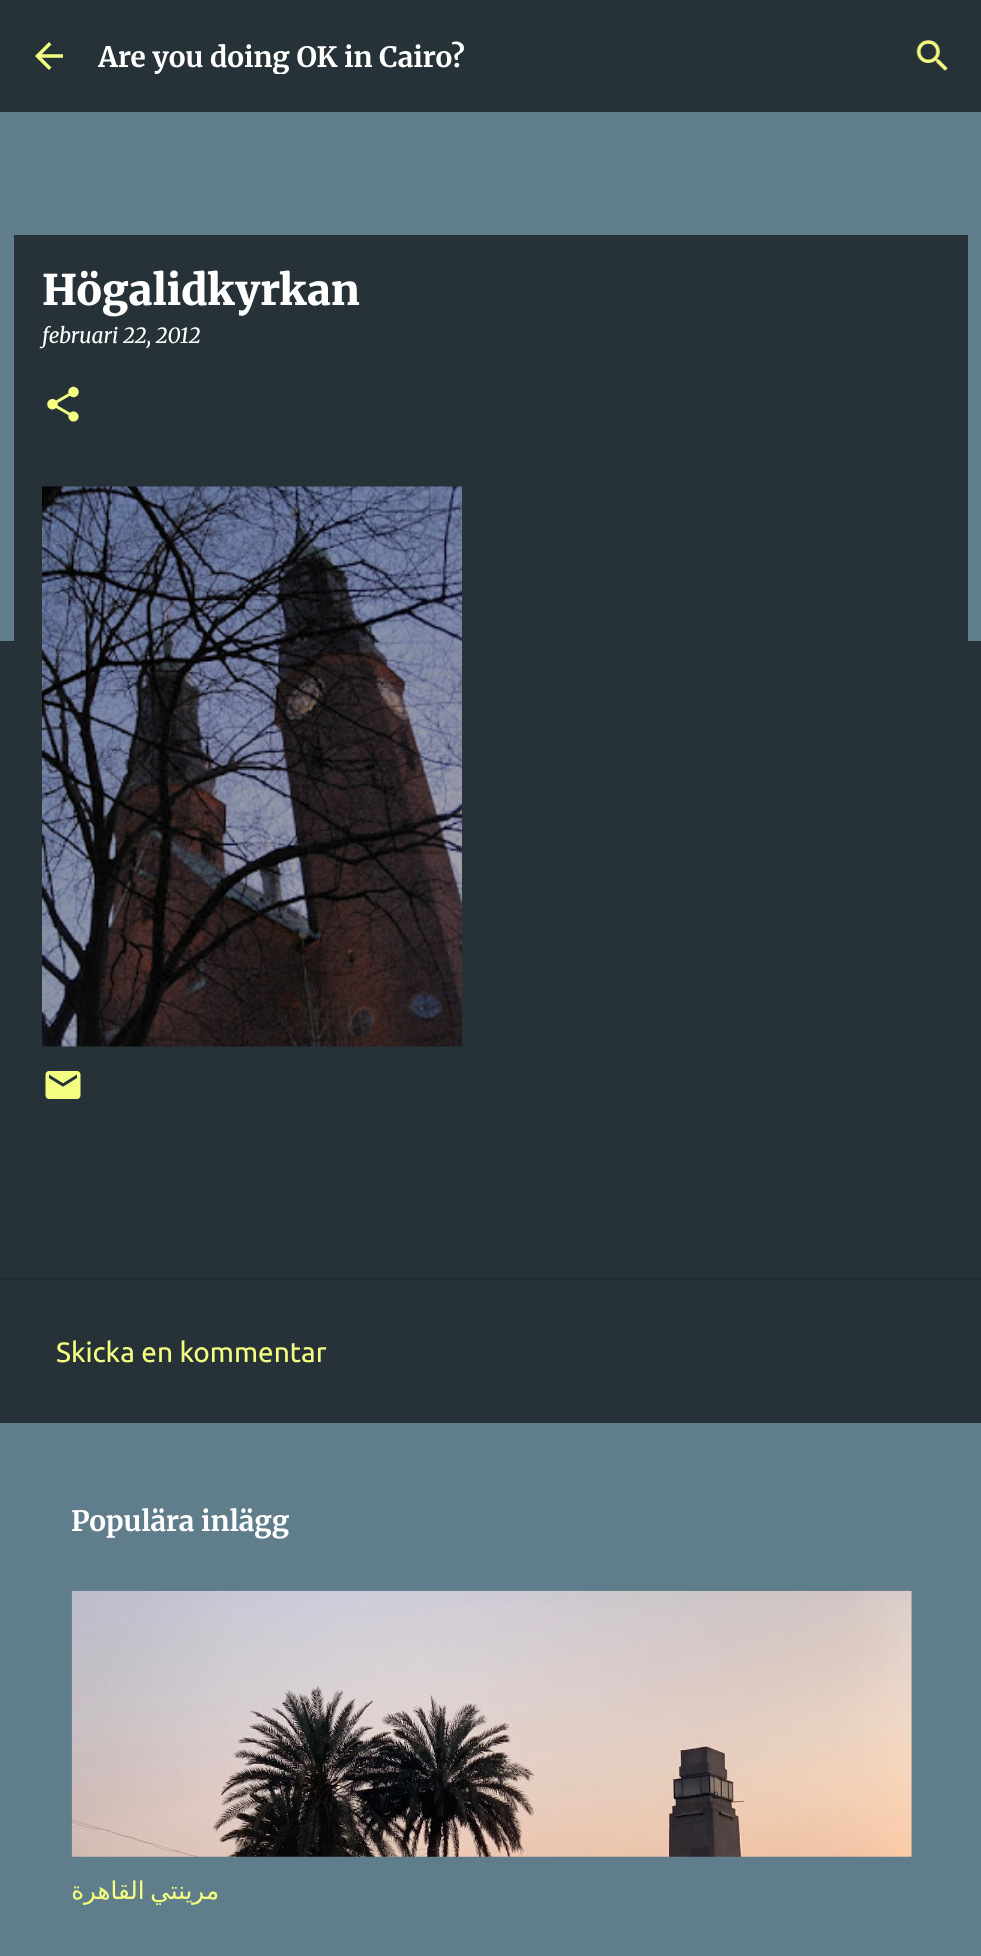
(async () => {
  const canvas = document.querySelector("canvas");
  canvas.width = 981;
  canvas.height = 1956;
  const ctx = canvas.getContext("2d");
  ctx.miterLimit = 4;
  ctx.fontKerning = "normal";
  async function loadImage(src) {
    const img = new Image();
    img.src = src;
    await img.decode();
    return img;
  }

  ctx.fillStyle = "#607d8b";
  ctx.fillRect(0, 0, 981, 1956);
  ctx.fillStyle = "#263238";
  ctx.fillRect(0, 0, 981, 112);
  ctx.drawImage(await loadImage("img/1.png"), 35, 42, 28, 28);
  ctx.drawImage(await loadImage("img/2.png"), 916, 40, 32, 31);
  ctx.fillRect(0, 641, 981, 637);
  ctx.fillRect(14, 235, 954, 406);
  ctx.drawImage(await loadImage("img/3.png"), 47, 386, 32, 36);
  ctx.drawImage(await loadImage("img/4.png"), 42, 486, 420, 561);
  ctx.drawImage(await loadImage("img/5.png"), 45, 1071, 36, 28);
  ctx.fillRect(0, 1280, 981, 143);
  ctx.fillStyle = "#212c31";
  ctx.fillRect(0, 1278, 981, 2);
  ctx.drawImage(await loadImage("img/6.png"), 71, 1590, 841, 267);
  ctx.save();
  ctx.beginPath();
  ctx.rect(98, 39, 786, 35);
  ctx.clip();
  ctx.font = "bold 28px Merriweather";
  ctx.fillStyle = "#ffffff";
  ctx.fillText("Are you doing OK in Cairo?", 98, 67);
  ctx.restore();
  ctx.font = "900 42px Merriweather";
  ctx.fillStyle = "#ffffff";
  ctx.fillText("Högalidkyrkan", 42, 305);
  ctx.font = "italic 21px Merriweather";
  ctx.fillText("februari 22, 2012", 42, 343);
  ctx.font = "28px Ubuntu";
  ctx.fillStyle = "#f4ff81";
  ctx.fillText("Skicka en kommentar", 56, 1362);
  ctx.font = "bold 28px Merriweather";
  ctx.fillStyle = "#ffffff";
  ctx.fillText("Populära inlägg", 71, 1531);
  ctx.wordSpacing = "-2px";
  ctx.direction = "rtl";
  ctx.font = "24.5px DejaVu Sans";
  ctx.fillStyle = "#f4ff81";
  ctx.fillText("مرينتي القاهرة", 219, 1899);
})();
